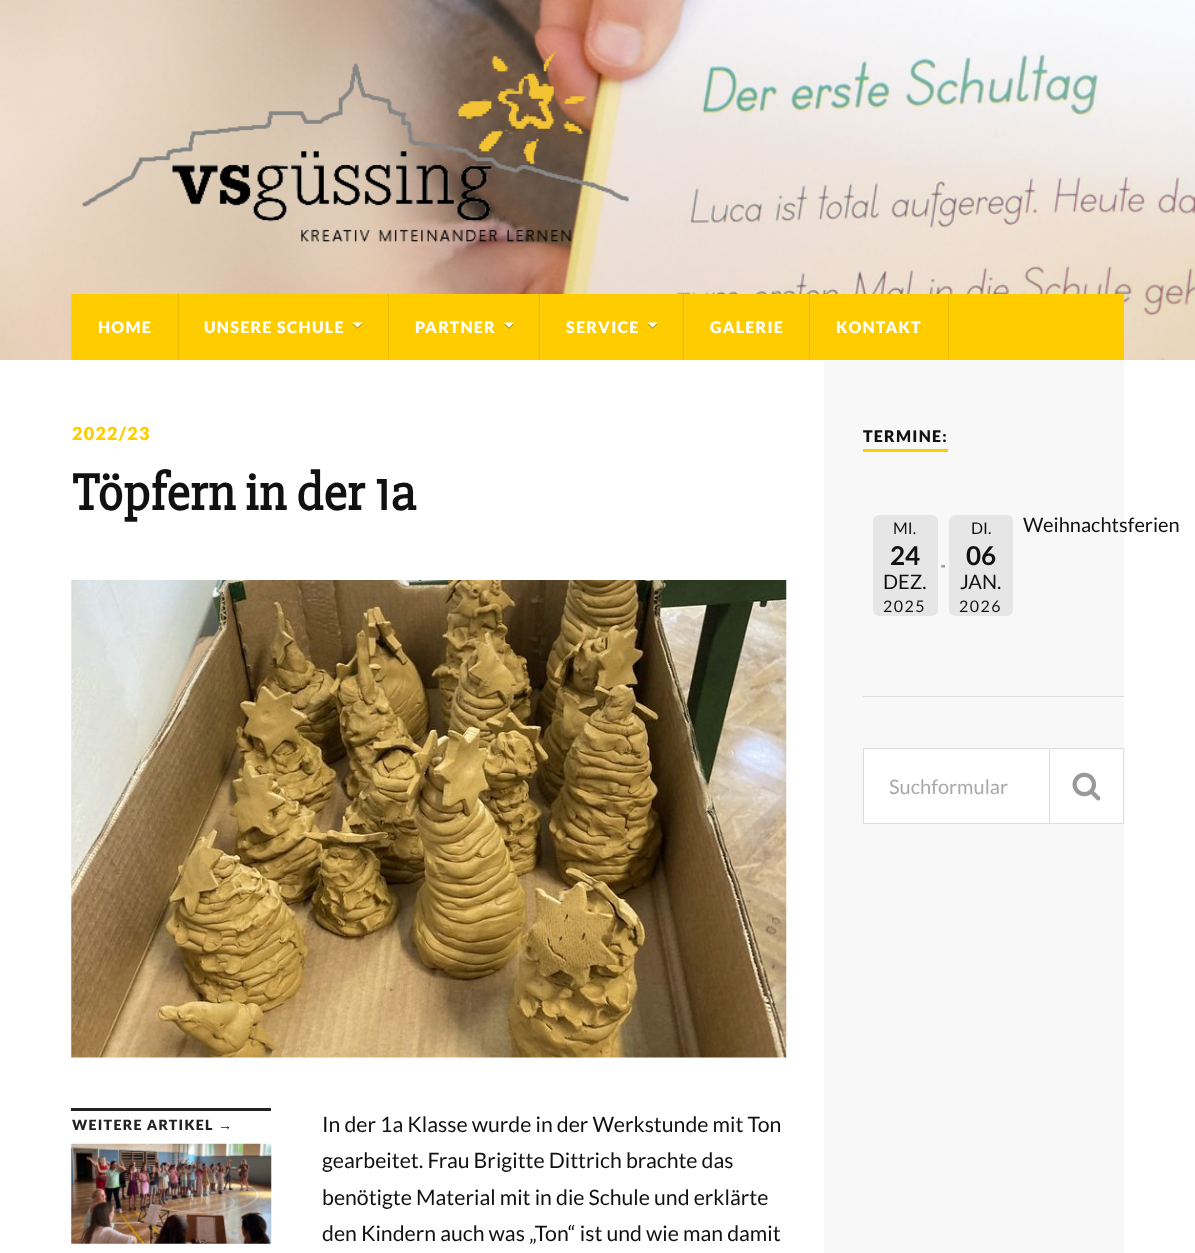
(async () => {
  const canvas = document.querySelector("canvas");
  canvas.width = 1195;
  canvas.height = 1253;
  const ctx = canvas.getContext("2d");
  ctx.miterLimit = 4;
  ctx.fontKerning = "normal";
  async function loadImage(src) {
    const img = new Image();
    img.src = src;
    await img.decode();
    return img;
  }
  let path;

  ctx.fillStyle = "#ffffff";
  ctx.fillRect(0, 0, 1195, 1253);
  ctx.drawImage(await loadImage("img/1.png"), 0, 0, 1195, 360);
  ctx.drawImage(await loadImage("img/2.png"), 82, 51, 547, 191);
  for (const [x, y, w, h, color] of [
    [72, 294, 1052, 66, "#ffcc00"],
    [178, 294, 1, 66, "#e6b800"],
    [71, 294, 1, 66, "#ffd11a"],
    [388, 294, 1, 66, "#e6b800"],
    [179, 294, 1, 66, "#ffd11a"],
  ]) {
    ctx.fillStyle = color;
    ctx.fillRect(x, y, w, h);
  }
  ctx.fillStyle = "#bf9900";
  path = new Path2D("M352.5 324H362.5L357.5 329Z");
  ctx.fill(path);
  ctx.fillStyle = "#ffffff";
  path = new Path2D("M352.5 322.5H362.5L357.5 327.5Z");
  ctx.fill(path);
  ctx.fillStyle = "#e6b800";
  ctx.fillRect(539, 294, 1, 66);
  ctx.fillStyle = "#ffd11a";
  ctx.fillRect(389, 294, 1, 66);
  ctx.fillStyle = "#bf9900";
  path = new Path2D("M504 324H514L509 329Z");
  ctx.fill(path);
  ctx.fillStyle = "#ffffff";
  path = new Path2D("M504 322.5H514L509 327.5Z");
  ctx.fill(path);
  ctx.fillStyle = "#e6b800";
  ctx.fillRect(683, 294, 1, 66);
  ctx.fillStyle = "#ffd11a";
  ctx.fillRect(540, 294, 1, 66);
  ctx.fillStyle = "#bf9900";
  path = new Path2D("M647.5 324H657.5L652.5 329Z");
  ctx.fill(path);
  ctx.fillStyle = "#ffffff";
  path = new Path2D("M647.5 322.5H657.5L652.5 327.5Z");
  ctx.fill(path);
  for (const [x, y, w, h, color] of [
    [809, 294, 1, 66, "#e6b800"],
    [684, 294, 1, 66, "#ffd11a"],
    [948, 294, 1, 66, "#e6b800"],
    [810, 294, 1, 66, "#ffd11a"],
    [949, 294, 1, 66, "#ffd11a"],
  ]) {
    ctx.fillStyle = color;
    ctx.fillRect(x, y, w, h);
  }
  ctx.drawImage(await loadImage("img/3.png"), 71, 580, 716, 478);
  ctx.fillStyle = "#222222";
  ctx.fillRect(71, 1108, 200, 3);
  ctx.drawImage(await loadImage("img/4.png"), 71, 1143, 201, 101);
  ctx.fillStyle = "#f8f8f8";
  ctx.fillRect(824, 360, 300, 893);
  ctx.fillStyle = "#ffcc00";
  ctx.fillRect(863, 449, 85, 3);
  ctx.drawImage(await loadImage("img/5.png"), 941, 564, 4, 4);
  ctx.fillStyle = "#e6e6e6";
  ctx.beginPath();
  ctx.roundRect(873, 515, 65, 101, 6);
  ctx.fill();
  ctx.beginPath();
  ctx.roundRect(949, 515, 64, 101, 6);
  ctx.fill();
  ctx.fillStyle = "#dddddd";
  ctx.fillRect(863, 696, 261, 1);
  ctx.fillStyle = "#ffffff";
  ctx.beginPath();
  ctx.rect(863.5, 748.5, 260, 75);
  ctx.fill();
  ctx.strokeStyle = "#dddddd";
  ctx.stroke();
  ctx.fillStyle = "#dddddd";
  ctx.fillRect(1049, 748, 1, 76);
  ctx.drawImage(await loadImage("img/6.png"), 1072, 772, 29, 29);
  ctx.letterSpacing = "1.25px";
  ctx.font = "900 16px Lato";
  ctx.fillStyle = "#ffffff";
  for (const [text, x, y] of [
    ["HOME", 98, 333],
    ["UNSERE SCHULE", 204, 333],
    ["PARTNER", 415, 333],
    ["SERVICE", 566, 333],
    ["GALERIE", 710, 333],
    ["KONTAKT", 836, 333],
  ]) {
    ctx.fillText(text, x, y);
  }
  ctx.font = "900 18px Lato";
  ctx.fillStyle = "#ffcc00";
  ctx.fillText("2022/23", 72, 440);
  ctx.letterSpacing = "0px";
  ctx.font = "bold 53px 'Slabo 27px'";
  ctx.fillStyle = "#111111";
  ctx.fillText("Töpfern in der 1a", 72, 510);
  ctx.letterSpacing = "1.25px";
  ctx.font = "900 14.25px Lato";
  ctx.fillStyle = "#222222";
  ctx.fillText("WEITERE ARTIKEL", 72, 1130);
  ctx.font = "bold 14.25px Liberation Sans";
  ctx.fillText("→", 218, 1130);
  ctx.letterSpacing = "0px";
  ctx.font = "21.25px Lato";
  ctx.fillStyle = "#111111";
  for (const [text, x, y] of [
    ["In der 1a Klasse wurde in der Werkstunde mit Ton", 322, 1132],
    ["gearbeitet. Frau Brigitte Dittrich brachte das", 322, 1168],
    ["benötigte Material mit in die Schule und erklärte", 322, 1205],
    ["den Kindern auch was „Ton“ ist und wie man damit", 322, 1241],
  ]) {
    ctx.fillText(text, x, y);
  }
  ctx.letterSpacing = "1.25px";
  ctx.font = "900 16px Lato";
  ctx.fillText("TERMINE:", 863, 442);
  ctx.letterSpacing = "0px";
  ctx.font = "16px Lato";
  ctx.fillText("MI.", 893, 534);
  ctx.font = "bold 26px Lato";
  ctx.fillText("24", 890, 565);
  ctx.font = "20px Lato";
  ctx.fillText("DEZ.", 883, 589);
  ctx.letterSpacing = "1.5px";
  ctx.font = "16px Lato";
  ctx.fillText("2025", 883, 612);
  ctx.letterSpacing = "0px";
  ctx.fillText("DI.", 971, 534);
  ctx.font = "bold 26px Lato";
  ctx.fillText("06", 966, 565);
  ctx.font = "20px Lato";
  ctx.fillText("JAN.", 960, 589);
  ctx.letterSpacing = "1.5px";
  ctx.font = "16px Lato";
  ctx.fillText("2026", 959, 612);
  ctx.letterSpacing = "0px";
  ctx.font = "20px Lato";
  ctx.fillText("Weihnachtsferien", 1023, 532);
  ctx.fillStyle = "#a9a9a9";
  ctx.fillText("Suchformular", 889, 794);
})();
